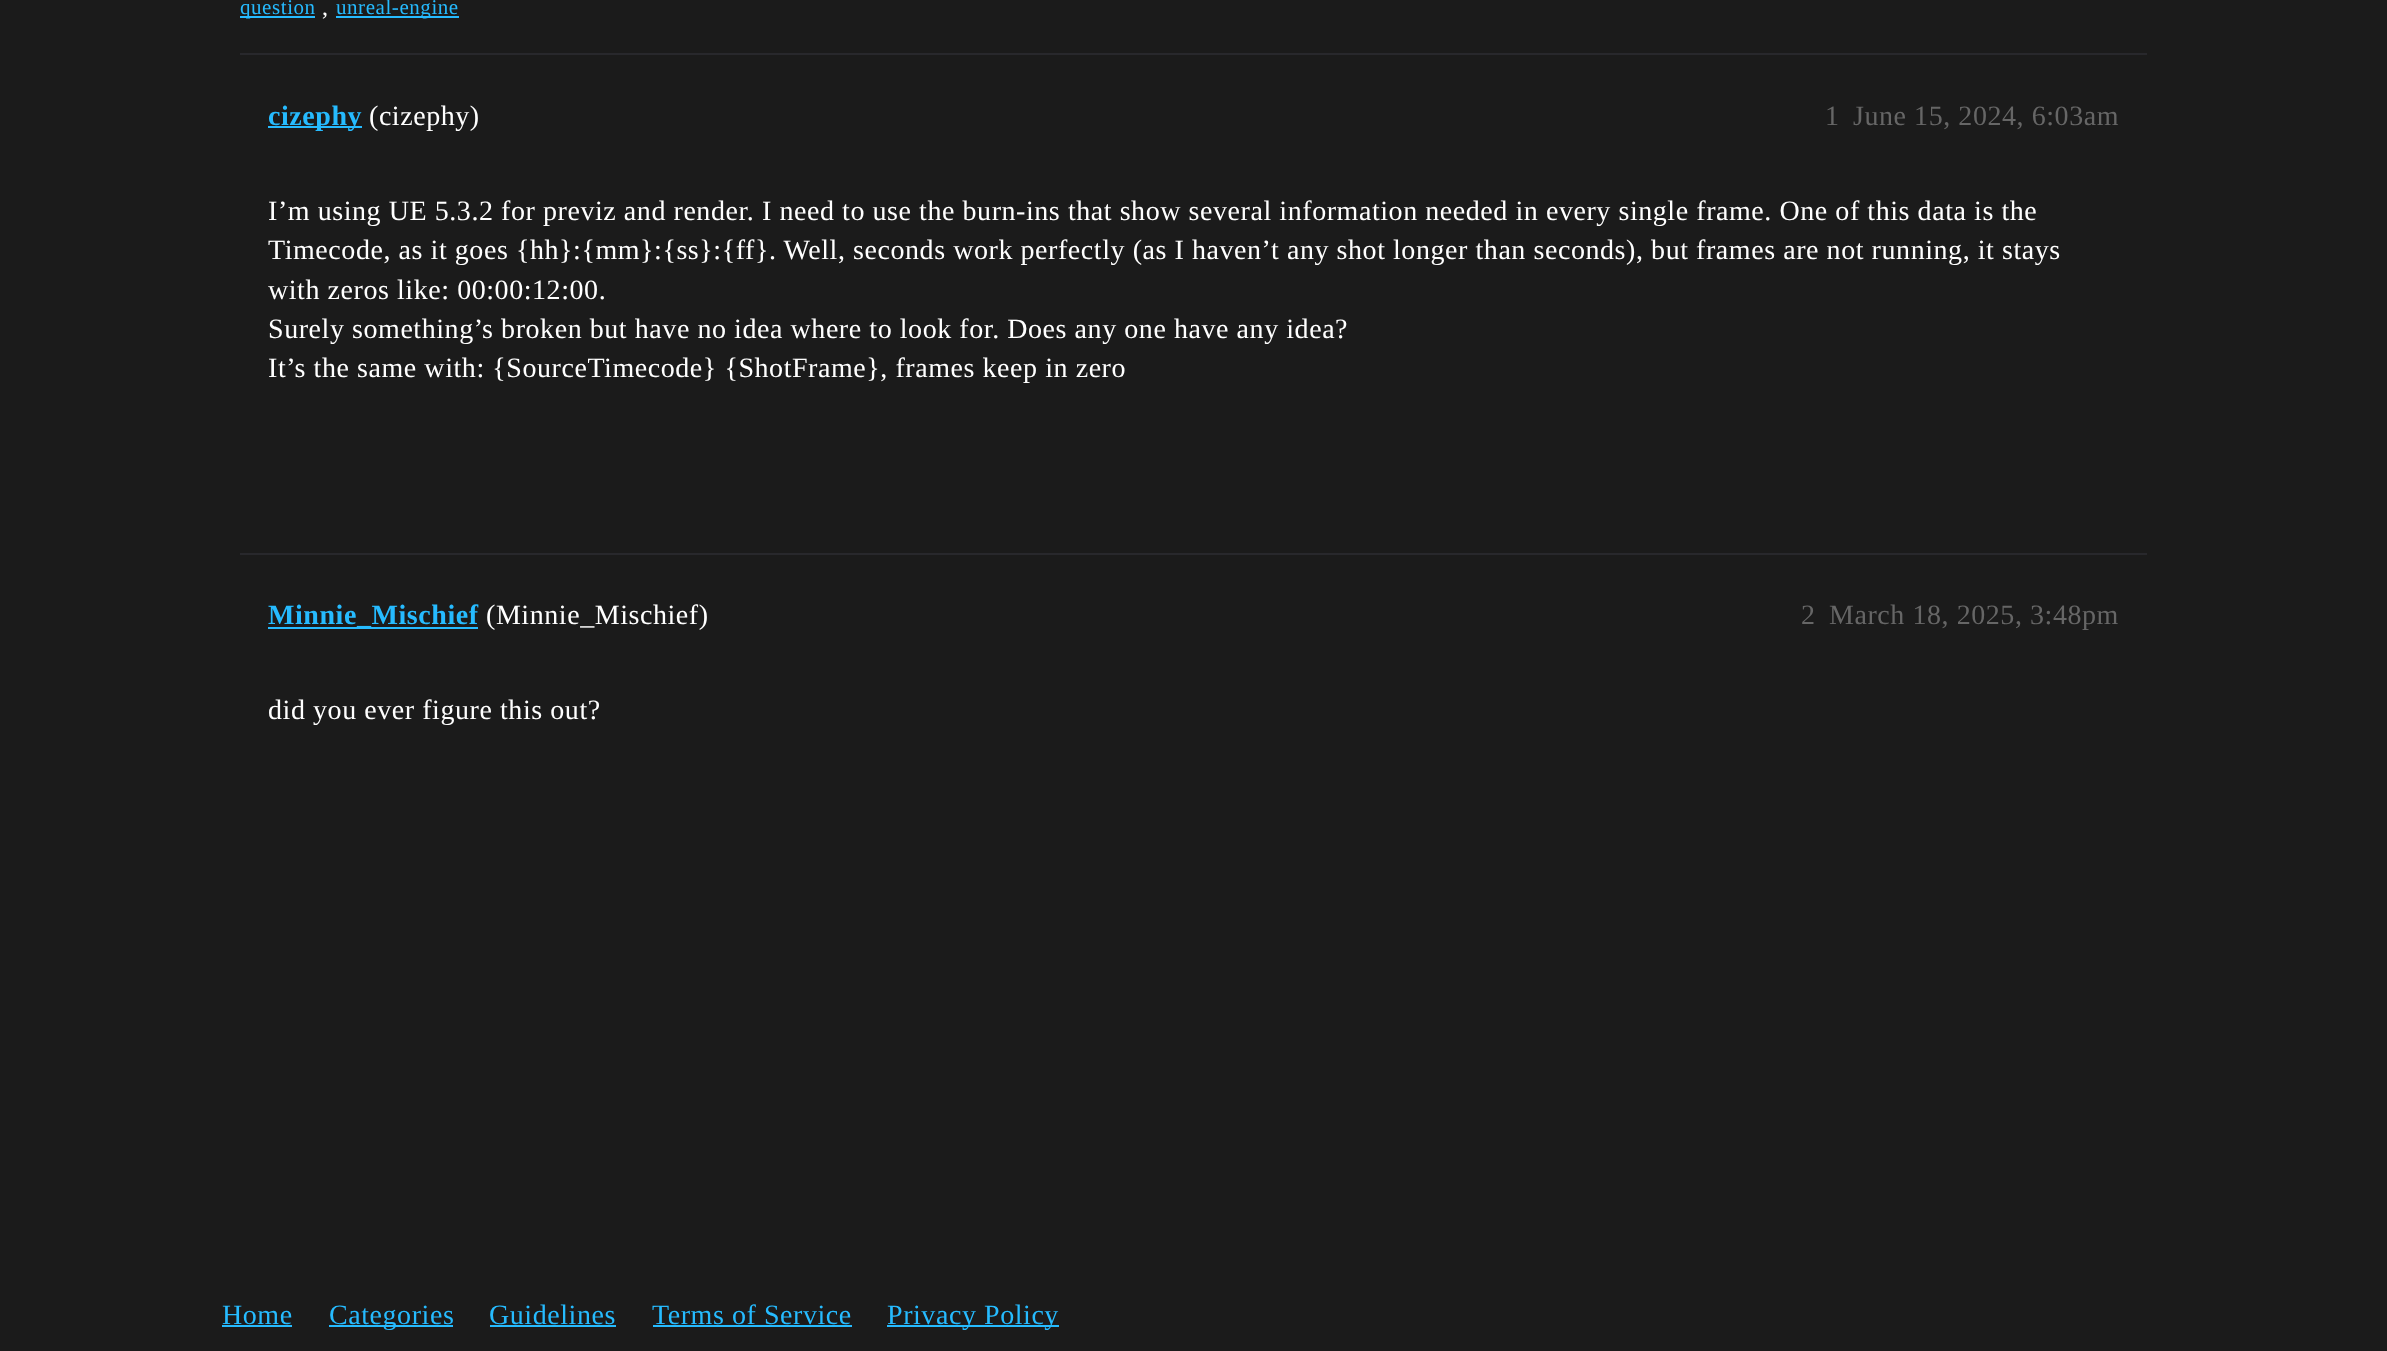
(async () => {
  const canvas = document.querySelector("canvas");
  canvas.width = 2387;
  canvas.height = 1351;
  const ctx = canvas.getContext("2d");
  ctx.miterLimit = 4;
  ctx.fontKerning = "normal";

  ctx.fillStyle = "#1b1b1b";
  ctx.fillRect(0, 0, 2387, 1351);
  for (const [x, y, w, h, color] of [
    [240, 16, 75, 2, "#26bbff"],
    [336, 16, 123, 2, "#26bbff"],
    [240, 53, 1907, 2, "#28282c"],
    [268, 126, 94, 2, "#26bbff"],
    [240, 553, 1907, 2, "#28282c"],
    [268, 627, 210, 2, "#26bbff"],
    [222, 1325, 70, 2, "#26bbff"],
    [329, 1325, 124, 2, "#26bbff"],
    [490, 1325, 126, 2, "#26bbff"],
    [653, 1325, 199, 2, "#26bbff"],
    [887, 1325, 172, 2, "#26bbff"],
  ]) {
    ctx.fillStyle = color;
    ctx.fillRect(x, y, w, h);
  }
  ctx.letterSpacing = "0.56px";
  ctx.font = "21px Liberation Serif";
  ctx.fillText("question", 240, 14);
  ctx.font = "24px Liberation Serif";
  ctx.fillStyle = "#ffffff";
  ctx.fillText(",", 322, 15);
  ctx.font = "21px Liberation Serif";
  ctx.fillStyle = "#26bbff";
  ctx.fillText("unreal-engine", 336, 14);
  ctx.font = "bold 28px Liberation Serif";
  ctx.fillText("cizephy", 268, 125);
  ctx.font = "28px Liberation Serif";
  ctx.fillStyle = "#ffffff";
  ctx.fillText("(cizephy)", 369, 125);
  ctx.fillStyle = "#666666";
  ctx.fillText("1", 1825, 125);
  ctx.fillText("June 15, 2024, 6:03am", 1853, 125);
  ctx.fillStyle = "#ffffff";
  for (const [text, x, y] of [
    ["I’m using UE 5.3.2 for previz and render. I need to use the burn-ins that show several information needed in every single frame. One of this data is the", 268, 220],
    ["Timecode, as it goes {hh}:{mm}:{ss}:{ff}. Well, seconds work perfectly (as I haven’t any shot longer than seconds), but frames are not running, it stays", 268, 259],
    ["with zeros like: 00:00:12:00.", 268, 299],
    ["Surely something’s broken but have no idea where to look for. Does any one have any idea?", 268, 338],
    ["It’s the same with: {SourceTimecode} {ShotFrame}, frames keep in zero", 268, 377],
  ]) {
    ctx.fillText(text, x, y);
  }
  ctx.font = "bold 28px Liberation Serif";
  ctx.fillStyle = "#26bbff";
  ctx.fillText("Minnie_Mischief", 268, 624);
  ctx.font = "28px Liberation Serif";
  ctx.fillStyle = "#ffffff";
  ctx.fillText("(Minnie_Mischief)", 486, 624);
  ctx.fillStyle = "#666666";
  ctx.fillText("2", 1801, 624);
  ctx.fillText("March 18, 2025, 3:48pm", 1829, 624);
  ctx.fillStyle = "#ffffff";
  ctx.fillText("did you ever figure this out?", 268, 719);
  ctx.fillStyle = "#26bbff";
  for (const [text, x, y] of [
    ["Home", 222, 1324],
    ["Categories", 329, 1324],
    ["Guidelines", 489, 1324],
    ["Terms of Service", 652, 1324],
    ["Privacy Policy", 887, 1324],
  ]) {
    ctx.fillText(text, x, y);
  }
})();
